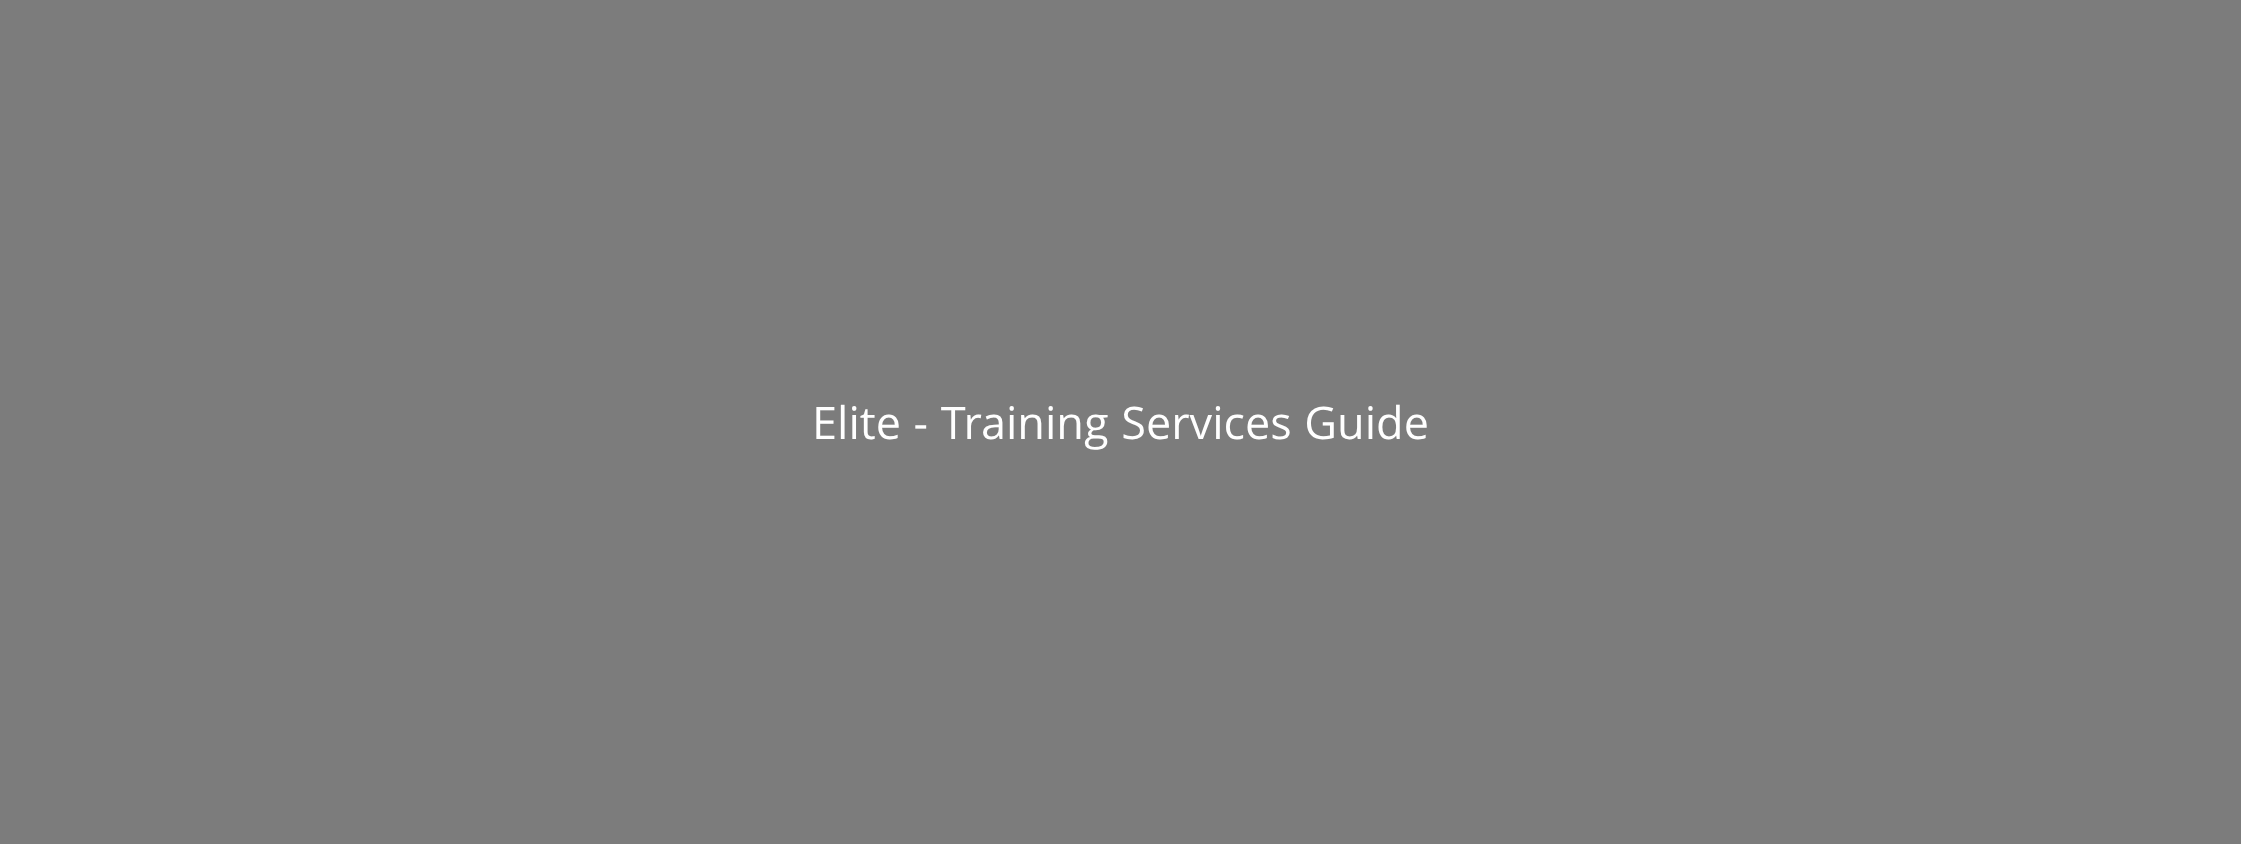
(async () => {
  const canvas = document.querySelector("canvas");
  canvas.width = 2241;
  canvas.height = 844;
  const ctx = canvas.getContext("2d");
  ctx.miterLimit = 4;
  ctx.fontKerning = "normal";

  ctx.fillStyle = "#7c7c7c";
  ctx.fillRect(0, 0, 2241, 844);
  ctx.wordSpacing = "1px";
  ctx.font = "45px Open Sans";
  ctx.fillStyle = "#ffffff";
  ctx.fillText("Elite - Training Services Guide", 812, 439);
})();
